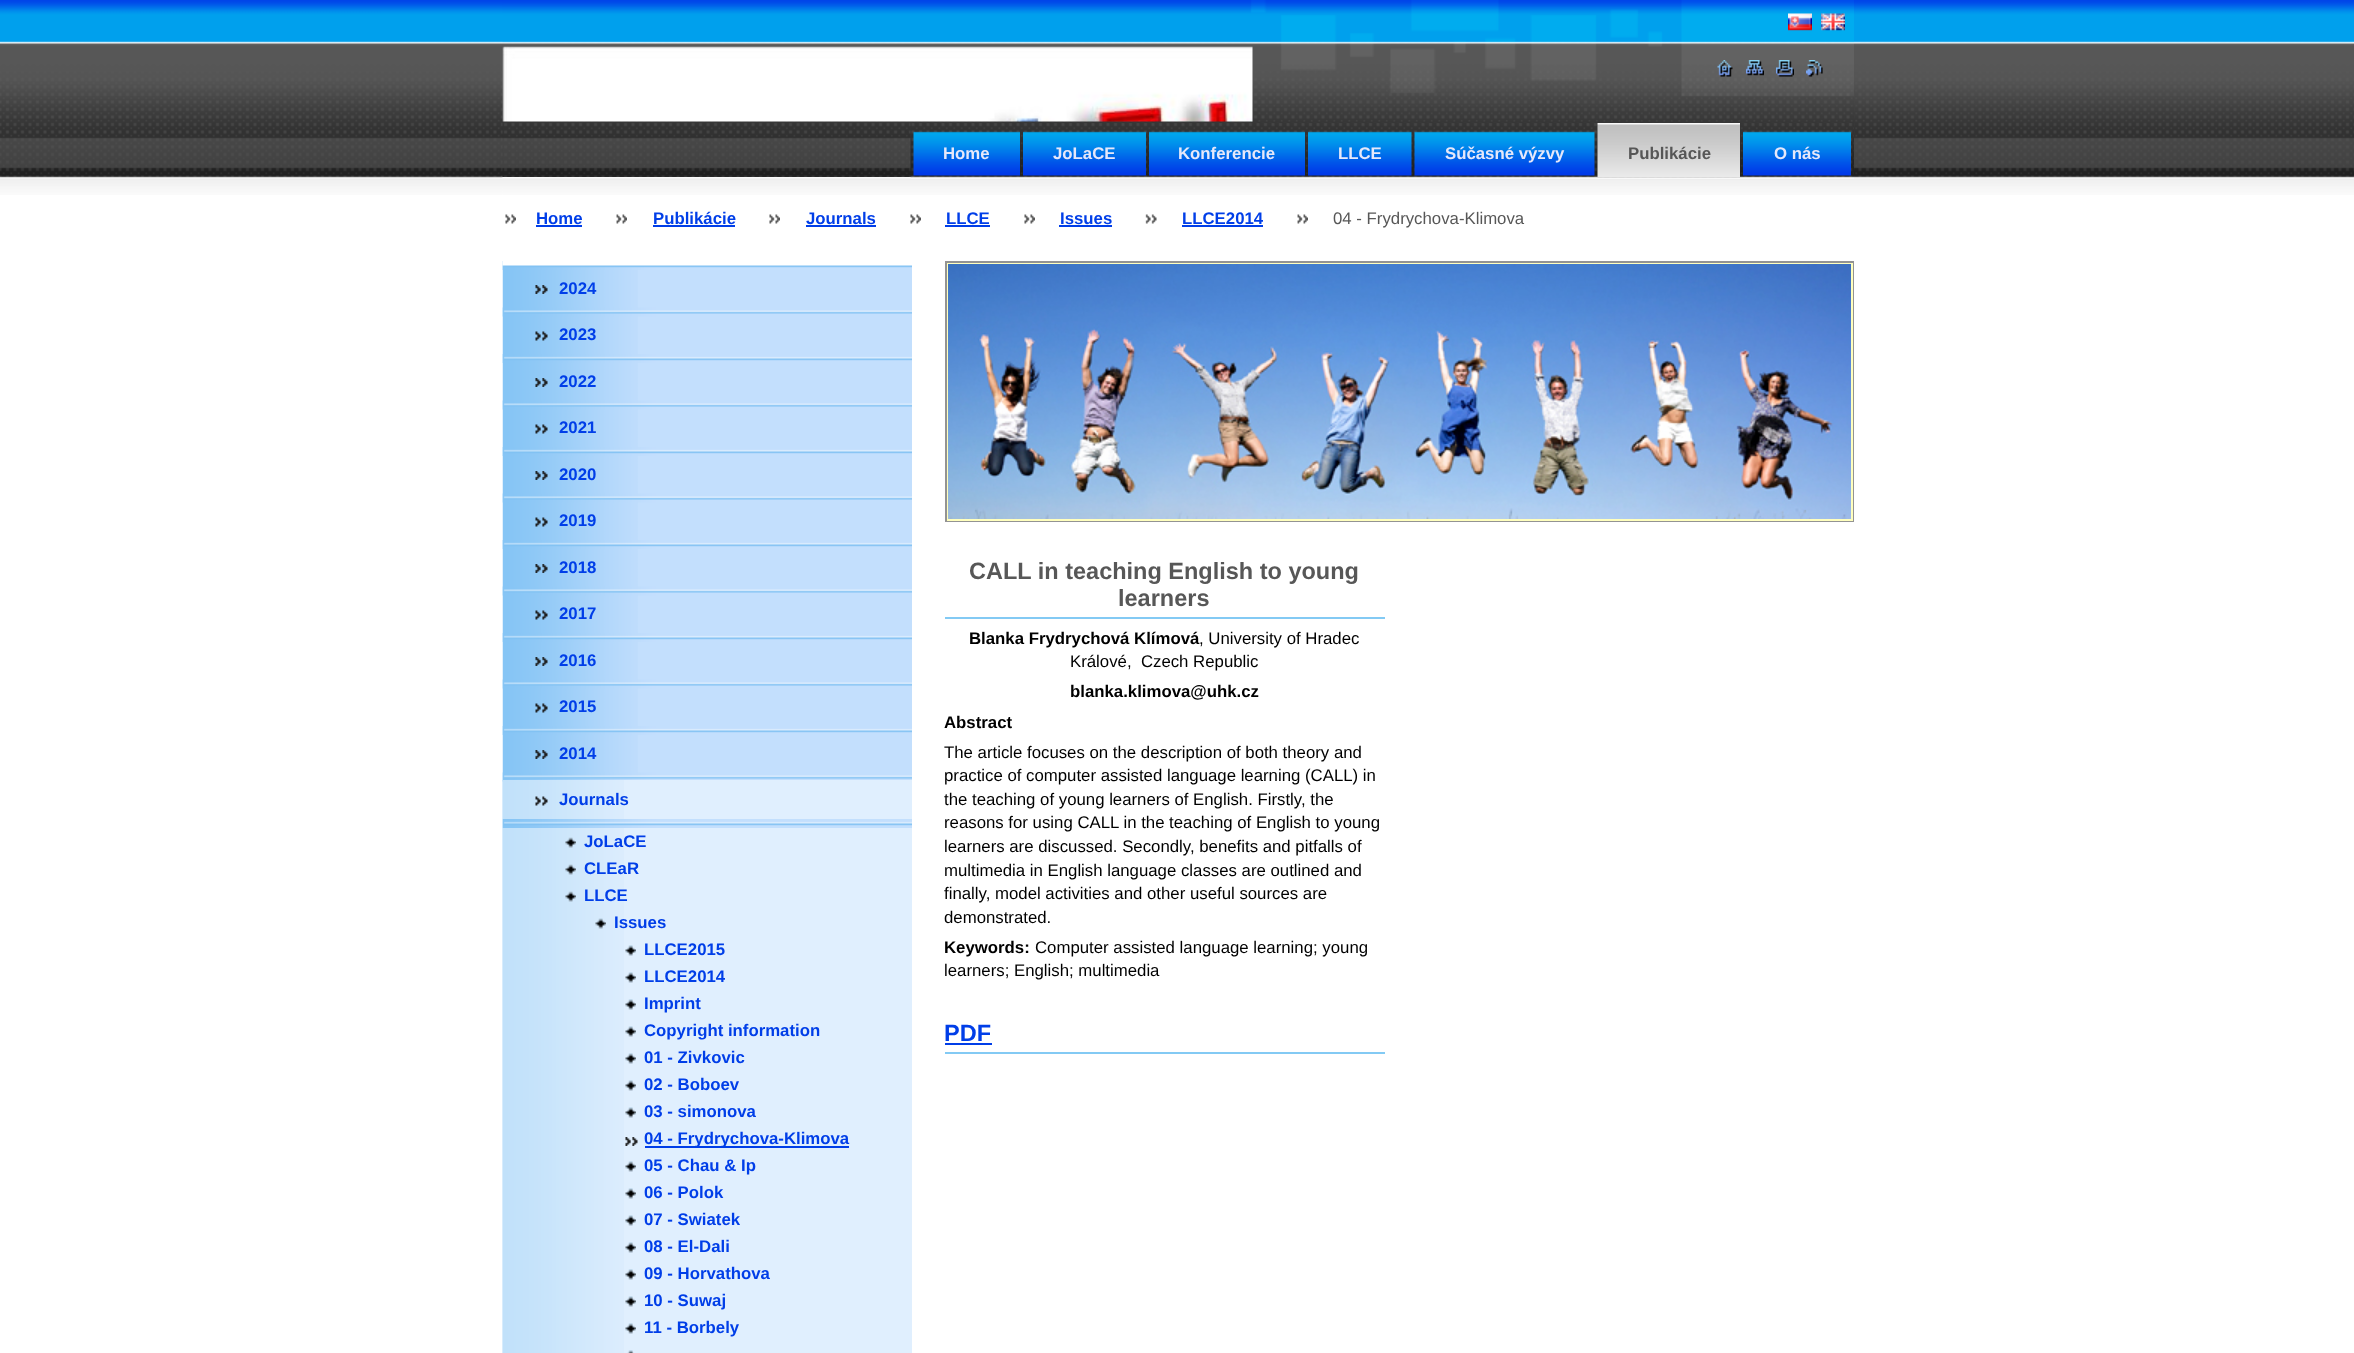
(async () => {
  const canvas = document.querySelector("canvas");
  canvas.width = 2354;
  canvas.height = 1353;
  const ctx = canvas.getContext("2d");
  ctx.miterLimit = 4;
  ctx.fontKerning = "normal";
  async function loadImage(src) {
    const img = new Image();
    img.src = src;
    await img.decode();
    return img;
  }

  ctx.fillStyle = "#ffffff";
  ctx.fillRect(0, 0, 2354, 1353);
  ctx.drawImage(await loadImage("img/1.png"), 0, 0, 2354, 195);
  ctx.drawImage(await loadImage("img/2.png"), 502, 0, 1352, 177);
  ctx.drawImage(await loadImage("img/3.png"), 1788, 13, 24, 18);
  ctx.drawImage(await loadImage("img/4.png"), 1821, 13, 24, 18);
  ctx.drawImage(await loadImage("img/5.png"), 502, 46, 751, 76);
  ctx.drawImage(await loadImage("img/6.png"), 1717, 60, 16, 17);
  ctx.drawImage(await loadImage("img/7.png"), 1746, 60, 18, 16);
  ctx.drawImage(await loadImage("img/8.png"), 1776, 60, 18, 17);
  ctx.drawImage(await loadImage("img/9.png"), 1806, 60, 17, 17);
  ctx.drawImage(await loadImage("img/18.png"), 502, 177, 1352, 18);
  ctx.drawImage(await loadImage("img/10.png"), 910, 123, 944, 56);
  ctx.drawImage(await loadImage("img/11.png"), 913, 131, 107, 45);
  ctx.drawImage(await loadImage("img/12.png"), 1023, 131, 123, 45);
  ctx.drawImage(await loadImage("img/13.png"), 1149, 131, 156, 45);
  ctx.drawImage(await loadImage("img/14.png"), 1308, 131, 104, 45);
  ctx.drawImage(await loadImage("img/15.png"), 1414, 131, 181, 45);
  ctx.drawImage(await loadImage("img/16.png"), 1597, 123, 143, 54);
  ctx.drawImage(await loadImage("img/17.png"), 1743, 131, 108, 45);
  ctx.drawImage(await loadImage("img/19.png"), 505, 214, 11, 10);
  ctx.fillStyle = "#003ee8";
  ctx.fillRect(536, 225, 46, 2);
  ctx.drawImage(await loadImage("img/20.png"), 616, 214, 11, 10);
  ctx.fillRect(653, 225, 82, 2);
  ctx.drawImage(await loadImage("img/19.png"), 769, 214, 11, 10);
  ctx.fillRect(806, 225, 70, 2);
  ctx.drawImage(await loadImage("img/19.png"), 910, 214, 11, 10);
  ctx.fillRect(945, 225, 45, 2);
  ctx.drawImage(await loadImage("img/19.png"), 1024, 214, 11, 10);
  ctx.fillRect(1059, 225, 53, 2);
  ctx.drawImage(await loadImage("img/21.png"), 1145, 214, 12, 10);
  ctx.fillRect(1182, 225, 81, 2);
  ctx.drawImage(await loadImage("img/20.png"), 1297, 214, 11, 10);
  ctx.fillStyle = "#c3dffd";
  ctx.fillRect(638, 270, 274, 503);
  ctx.drawImage(await loadImage("img/22.png"), 502, 261, 136, 1092);
  ctx.drawImage(await loadImage("img/23.png"), 502, 261, 410, 9);
  ctx.drawImage(await loadImage("img/24.png"), 535, 285, 13, 9);
  ctx.drawImage(await loadImage("img/25.png"), 502, 307, 410, 10);
  ctx.drawImage(await loadImage("img/26.png"), 535, 331, 13, 10);
  ctx.drawImage(await loadImage("img/27.png"), 502, 354, 410, 9);
  ctx.drawImage(await loadImage("img/28.png"), 535, 378, 13, 9);
  ctx.drawImage(await loadImage("img/25.png"), 502, 400, 410, 10);
  ctx.drawImage(await loadImage("img/29.png"), 535, 424, 13, 10);
  ctx.drawImage(await loadImage("img/27.png"), 502, 447, 410, 9);
  ctx.drawImage(await loadImage("img/28.png"), 535, 471, 13, 9);
  ctx.drawImage(await loadImage("img/25.png"), 502, 493, 410, 10);
  ctx.drawImage(await loadImage("img/29.png"), 535, 517, 13, 10);
  ctx.drawImage(await loadImage("img/27.png"), 502, 540, 410, 9);
  ctx.drawImage(await loadImage("img/28.png"), 535, 564, 13, 9);
  ctx.drawImage(await loadImage("img/25.png"), 502, 586, 410, 10);
  ctx.drawImage(await loadImage("img/29.png"), 535, 610, 13, 10);
  ctx.drawImage(await loadImage("img/27.png"), 502, 633, 410, 9);
  ctx.drawImage(await loadImage("img/28.png"), 535, 657, 13, 9);
  ctx.drawImage(await loadImage("img/25.png"), 502, 679, 410, 10);
  ctx.drawImage(await loadImage("img/29.png"), 535, 703, 13, 10);
  ctx.drawImage(await loadImage("img/27.png"), 502, 726, 410, 9);
  ctx.drawImage(await loadImage("img/28.png"), 535, 750, 13, 9);
  ctx.drawImage(await loadImage("img/25.png"), 502, 772, 410, 10);
  ctx.drawImage(await loadImage("img/31.png"), 502, 780, 122, 39);
  ctx.drawImage(await loadImage("img/30.png"), 535, 796, 13, 10);
  ctx.fillStyle = "#e0effe";
  ctx.fillRect(624, 780, 288, 39);
  ctx.drawImage(await loadImage("img/27.png"), 502, 819, 410, 9);
  ctx.drawImage(await loadImage("img/33.png"), 502, 828, 122, 27);
  ctx.drawImage(await loadImage("img/32.png"), 565, 837, 11, 11);
  ctx.fillRect(624, 828, 288, 525);
  ctx.drawImage(await loadImage("img/33.png"), 502, 855, 122, 27);
  ctx.drawImage(await loadImage("img/32.png"), 565, 864, 11, 11);
  ctx.drawImage(await loadImage("img/33.png"), 502, 882, 122, 27);
  ctx.drawImage(await loadImage("img/32.png"), 565, 891, 11, 11);
  ctx.drawImage(await loadImage("img/33.png"), 502, 909, 122, 27);
  ctx.drawImage(await loadImage("img/34.png"), 595, 918, 11, 11);
  ctx.drawImage(await loadImage("img/35.png"), 625, 945, 11, 11);
  ctx.drawImage(await loadImage("img/33.png"), 502, 936, 122, 27);
  ctx.drawImage(await loadImage("img/35.png"), 625, 972, 11, 11);
  ctx.drawImage(await loadImage("img/33.png"), 502, 963, 122, 27);
  ctx.drawImage(await loadImage("img/35.png"), 625, 999, 11, 11);
  ctx.drawImage(await loadImage("img/33.png"), 502, 990, 122, 27);
  ctx.drawImage(await loadImage("img/35.png"), 625, 1026, 11, 11);
  ctx.drawImage(await loadImage("img/33.png"), 502, 1017, 122, 27);
  ctx.drawImage(await loadImage("img/35.png"), 625, 1053, 11, 11);
  ctx.drawImage(await loadImage("img/33.png"), 502, 1044, 122, 27);
  ctx.drawImage(await loadImage("img/35.png"), 625, 1080, 11, 11);
  ctx.drawImage(await loadImage("img/33.png"), 502, 1071, 122, 27);
  ctx.drawImage(await loadImage("img/35.png"), 625, 1107, 11, 11);
  ctx.drawImage(await loadImage("img/33.png"), 502, 1098, 122, 27);
  ctx.drawImage(await loadImage("img/36.png"), 625, 1137, 13, 9);
  ctx.drawImage(await loadImage("img/33.png"), 502, 1125, 122, 27);
  ctx.fillStyle = "#003ee8";
  ctx.fillRect(645, 1146, 204, 2);
  ctx.drawImage(await loadImage("img/35.png"), 625, 1161, 11, 11);
  ctx.drawImage(await loadImage("img/33.png"), 502, 1152, 122, 27);
  ctx.drawImage(await loadImage("img/35.png"), 625, 1188, 11, 11);
  ctx.drawImage(await loadImage("img/33.png"), 502, 1179, 122, 27);
  ctx.drawImage(await loadImage("img/35.png"), 625, 1215, 11, 11);
  ctx.drawImage(await loadImage("img/33.png"), 502, 1206, 122, 27);
  ctx.drawImage(await loadImage("img/35.png"), 625, 1242, 11, 11);
  ctx.drawImage(await loadImage("img/33.png"), 502, 1233, 122, 27);
  ctx.drawImage(await loadImage("img/35.png"), 625, 1269, 11, 11);
  ctx.drawImage(await loadImage("img/33.png"), 502, 1260, 122, 27);
  ctx.drawImage(await loadImage("img/35.png"), 625, 1296, 11, 11);
  ctx.drawImage(await loadImage("img/33.png"), 502, 1287, 122, 27);
  ctx.drawImage(await loadImage("img/35.png"), 625, 1323, 11, 11);
  ctx.drawImage(await loadImage("img/33.png"), 502, 1314, 122, 27);
  ctx.drawImage(await loadImage("img/37.png"), 502, 1341, 122, 12);
  ctx.drawImage(await loadImage("img/38.png"), 627, 1350, 7, 3);
  ctx.strokeStyle = "#939393";
  ctx.lineWidth = 2;
  ctx.strokeRect(946, 262, 907, 259);
  ctx.strokeStyle = "#ffffbe";
  ctx.strokeRect(948, 264, 904, 256);
  ctx.drawImage(await loadImage("img/39.png"), 948, 264, 903, 255);
  for (const [x, y, w, h, color] of [
    [945, 617, 440, 2, "#83caf4"],
    [945, 1052, 440, 2, "#83caf4"],
    [945, 1043, 47, 2, "#003ee8"],
  ]) {
    ctx.fillStyle = color;
    ctx.fillRect(x, y, w, h);
  }
  ctx.font = "bold 16.8px Liberation Sans";
  ctx.fillStyle = "#e6e8fa";
  for (const [text, x, y] of [
    ["Home", 943, 159],
    ["JoLaCE", 1053, 159],
    ["Konferencie", 1178, 159],
    ["LLCE", 1338, 159],
    ["Súčasné výzvy", 1445, 159],
  ]) {
    ctx.fillText(text, x, y);
  }
  ctx.fillStyle = "#575757";
  ctx.fillText("Publikácie", 1628, 159);
  ctx.fillStyle = "#e6e8fa";
  ctx.fillText("O nás", 1774, 159);
  ctx.fillStyle = "#003ee8";
  for (const [text, x, y] of [
    ["Home", 536, 224],
    ["Publikácie", 653, 224],
    ["Journals", 806, 224],
    ["LLCE", 946, 224],
    ["Issues", 1060, 224],
    ["LLCE2014", 1182, 224],
  ]) {
    ctx.fillText(text, x, y);
  }
  ctx.font = "16.8px Liberation Sans";
  ctx.fillStyle = "#575757";
  ctx.fillText("04 - Frydrychova-Klimova", 1333, 224);
  ctx.font = "bold 16.8px Liberation Sans";
  ctx.fillStyle = "#003ee8";
  for (const [text, x, y] of [
    ["2024", 559, 294],
    ["2023", 559, 340],
    ["2022", 559, 387],
    ["2021", 559, 433],
    ["2020", 559, 480],
    ["2019", 559, 526],
    ["2018", 559, 573],
    ["2017", 559, 619],
    ["2016", 559, 666],
    ["2015", 559, 712],
    ["2014", 559, 759],
    ["Journals", 559, 805],
    ["JoLaCE", 584, 847],
    ["CLEaR", 584, 874],
    ["LLCE", 584, 901],
    ["Issues", 614, 928],
    ["LLCE2015", 644, 955],
    ["LLCE2014", 644, 982],
    ["Imprint", 644, 1009],
    ["Copyright information", 644, 1036],
    ["01 - Zivkovic", 644, 1063],
    ["02 - Boboev", 644, 1090],
    ["03 - simonova", 644, 1117],
    ["04 - Frydrychova-Klimova", 644, 1144],
    ["05 - Chau & Ip", 644, 1171],
    ["06 - Polok", 644, 1198],
    ["07 - Swiatek", 644, 1225],
    ["08 - El-Dali", 644, 1252],
    ["09 - Horvathova", 644, 1279],
    ["10 - Suwaj", 644, 1306],
    ["11 - Borbely", 644, 1333],
  ]) {
    ctx.fillText(text, x, y);
  }
  ctx.font = "bold 23.5px Liberation Sans";
  ctx.fillStyle = "#575757";
  ctx.fillText("CALL in teaching English to young", 969, 579);
  ctx.fillText("learners", 1118, 606);
  ctx.font = "bold 16.8px Liberation Sans";
  ctx.fillStyle = "#000000";
  ctx.fillText("Blanka Frydrychová Klímová", 969, 644);
  ctx.font = "16.8px Liberation Sans";
  ctx.fillText(", University of Hradec", 1199, 644);
  ctx.fillText("Králové,  Czech Republic", 1070, 667);
  ctx.font = "bold 16.8px Liberation Sans";
  ctx.fillText("blanka.klimova@uhk.cz", 1070, 697);
  ctx.fillText("Abstract", 944, 728);
  ctx.font = "16.8px Liberation Sans";
  for (const [text, x, y] of [
    ["The article focuses on the description of both theory and", 944, 758],
    ["practice of computer assisted language learning (CALL) in", 944, 781],
    ["the teaching of young learners of English. Firstly, the", 944, 805],
    ["reasons for using CALL in the teaching of English to young", 944, 828],
    ["learners are discussed. Secondly, benefits and pitfalls of", 944, 852],
    ["multimedia in English language classes are outlined and", 944, 876],
    ["finally, model activities and other useful sources are", 944, 899],
    ["demonstrated.", 944, 923],
  ]) {
    ctx.fillText(text, x, y);
  }
  ctx.font = "bold 16.8px Liberation Sans";
  ctx.fillText("Keywords:", 944, 953);
  ctx.font = "16.8px Liberation Sans";
  ctx.fillText("Computer assisted language learning; young", 1035, 953);
  ctx.fillText("learners; English; multimedia", 944, 976);
  ctx.font = "bold 23.5px Liberation Sans";
  ctx.fillStyle = "#003ee8";
  ctx.fillText("PDF", 944, 1041);
})();
